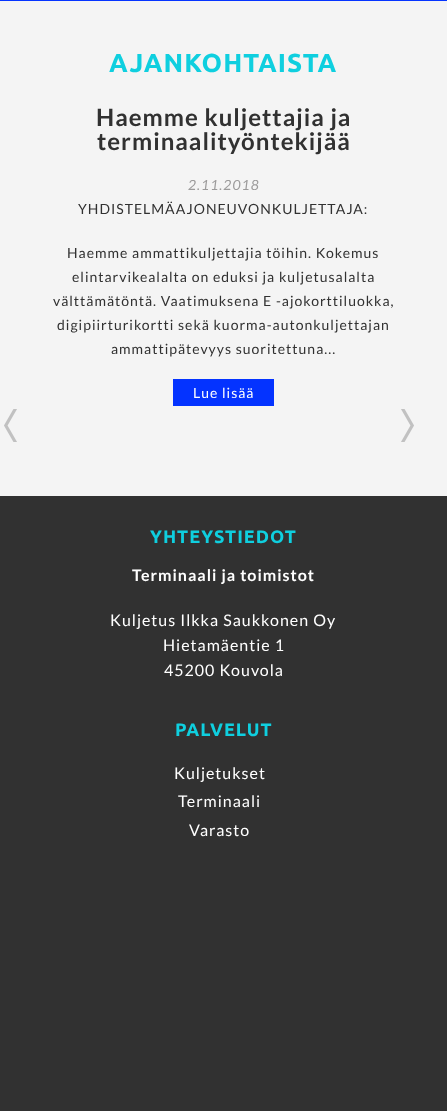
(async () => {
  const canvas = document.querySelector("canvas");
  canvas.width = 447;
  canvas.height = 1111;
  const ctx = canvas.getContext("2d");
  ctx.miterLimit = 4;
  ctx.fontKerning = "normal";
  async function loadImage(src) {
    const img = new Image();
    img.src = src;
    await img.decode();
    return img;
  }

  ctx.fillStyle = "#f4f4f4";
  ctx.fillRect(0, 0, 447, 1111);
  ctx.fillStyle = "#0534ff";
  ctx.fillRect(0, 0, 447, 1);
  ctx.fillStyle = "#0433ff";
  ctx.fillRect(173, 379, 101, 27);
  ctx.drawImage(await loadImage("img/1.png"), 4, 409, 13, 33);
  ctx.drawImage(await loadImage("img/2.png"), 401, 409, 13, 33);
  ctx.fillStyle = "#313131";
  ctx.fillRect(0, 496, 447, 615);
  ctx.letterSpacing = "1px";
  ctx.font = "bold 26px Ubuntu";
  ctx.fillStyle = "#0fcfdf";
  ctx.fillText("AJANKOHTAISTA", 109, 72);
  ctx.font = "bold 24px Lato";
  ctx.fillStyle = "#313131";
  ctx.fillText("Haemme kuljettajia ja", 96, 126);
  ctx.fillText("terminaalityöntekijää", 97, 150);
  ctx.font = "italic 14px Lato";
  ctx.fillStyle = "#9c9b9b";
  ctx.fillText("2.11.2018", 188, 190);
  ctx.font = "14px Lato";
  ctx.fillStyle = "#313131";
  for (const [text, x, y] of [
    ["YHDISTELMÄAJONEUVONKULJETTAJA:", 78, 214],
    ["Haemme ammattikuljettajia töihin. Kokemus", 67, 258],
    ["elintarvikealalta on eduksi ja kuljetusalalta", 72, 282],
    ["välttämätöntä. Vaatimuksena E -ajokorttiluokka,", 53, 306],
    ["digipiirturikortti sekä kuorma-autonkuljettajan", 57, 330],
    ["ammattipätevyys suoritettuna...", 111, 354],
  ]) {
    ctx.fillText(text, x, y);
  }
  ctx.fillStyle = "#ffffff";
  ctx.fillText("Lue lisää", 193, 398);
  ctx.font = "bold 18px Ubuntu";
  ctx.fillStyle = "#0fcfdf";
  ctx.fillText("YHTEYSTIEDOT", 150, 543);
  ctx.font = "bold 16px Lato";
  ctx.fillStyle = "#ffffff";
  ctx.fillText("Terminaali ja toimistot", 132, 581);
  ctx.font = "16px Lato";
  for (const [text, x, y] of [
    ["Kuljetus Ilkka Saukkonen Oy", 110, 626],
    ["Hietamäentie 1", 163, 651],
    ["45200 Kouvola", 164, 676],
  ]) {
    ctx.fillText(text, x, y);
  }
  ctx.font = "bold 18px Ubuntu";
  ctx.fillStyle = "#0fcfdf";
  ctx.fillText("PALVELUT", 175, 736);
  ctx.font = "16px Lato";
  ctx.fillStyle = "#ffffff";
  for (const [text, x, y] of [
    ["Kuljetukset", 174, 779],
    ["Terminaali", 178, 807],
    ["Varasto", 189, 836],
  ]) {
    ctx.fillText(text, x, y);
  }
})();
